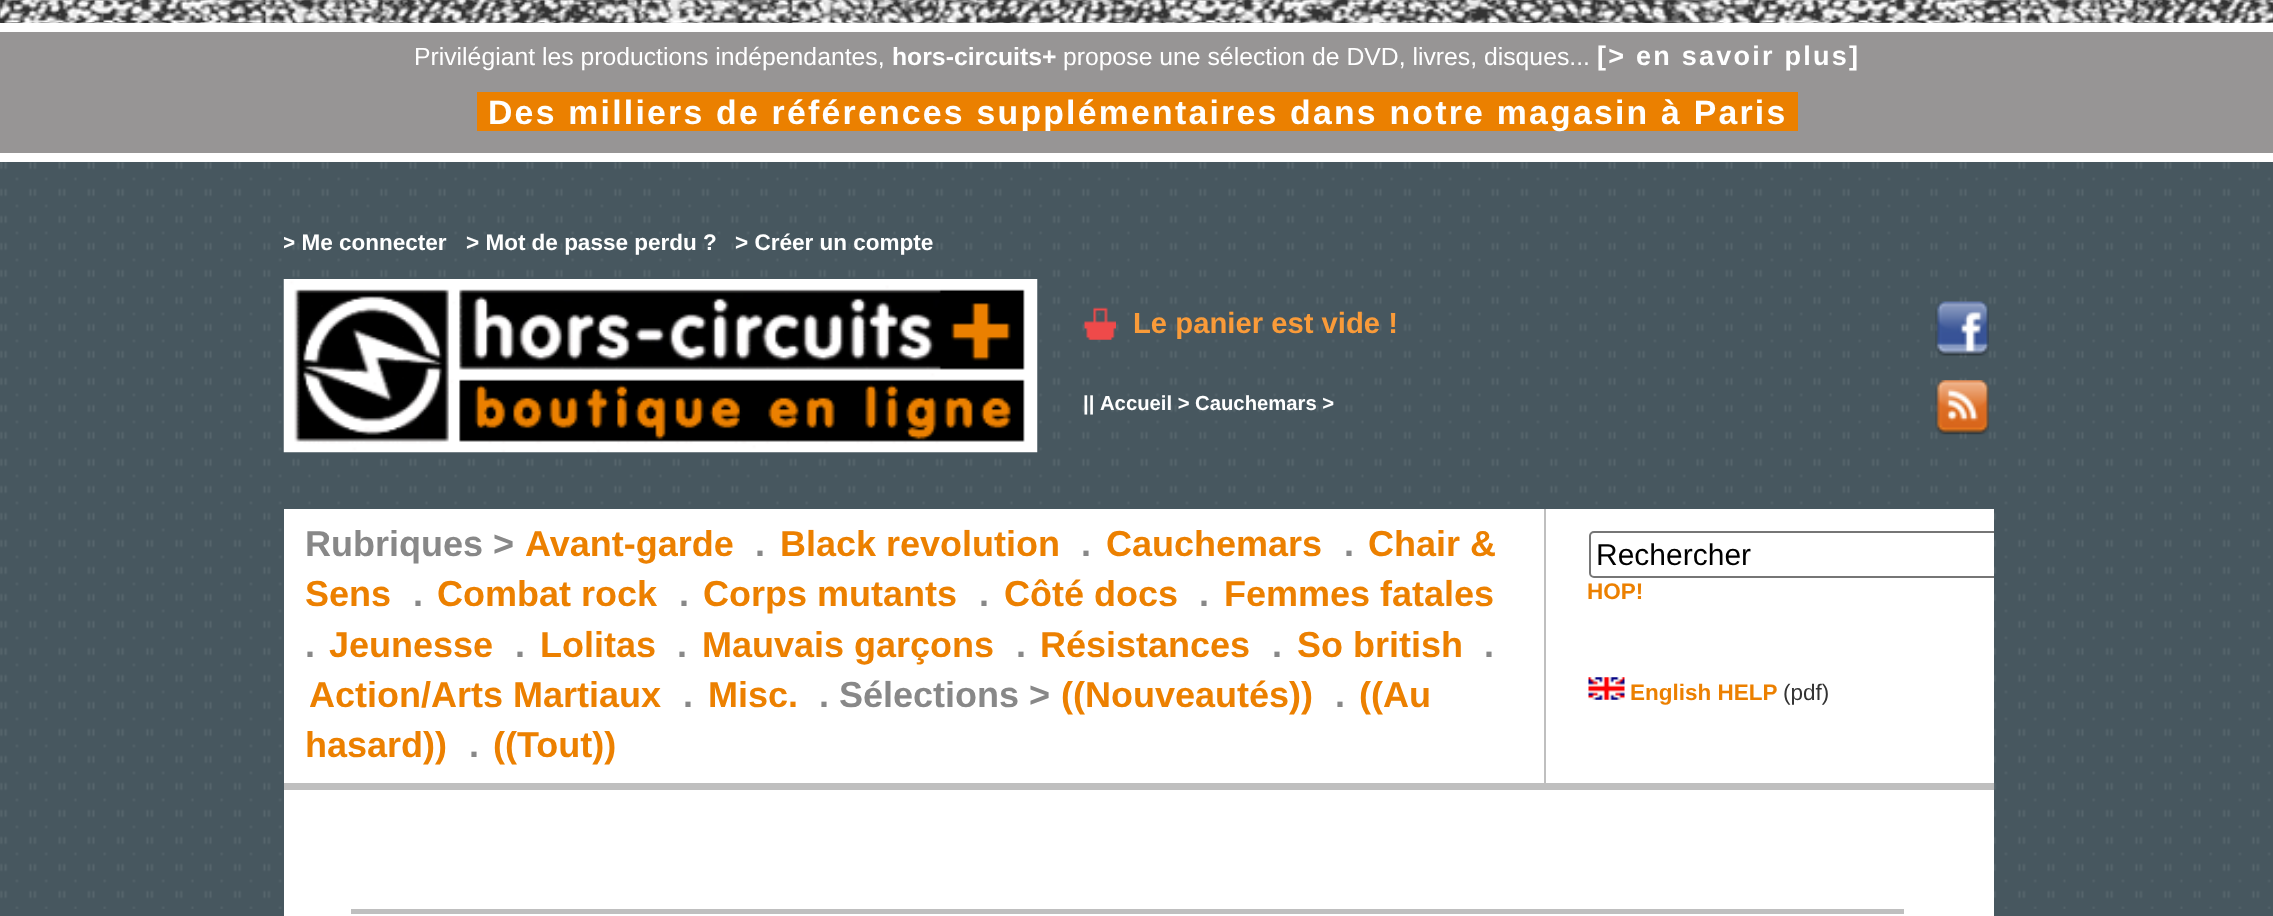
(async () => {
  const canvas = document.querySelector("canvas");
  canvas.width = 2273;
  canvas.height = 916;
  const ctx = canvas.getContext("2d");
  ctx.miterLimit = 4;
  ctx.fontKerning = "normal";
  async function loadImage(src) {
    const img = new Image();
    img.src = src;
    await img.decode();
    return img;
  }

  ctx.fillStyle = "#47575f";
  ctx.fillRect(0, 0, 2273, 916);
  ctx.drawImage(await loadImage("img/1.png"), 0, 162, 2271, 747);
  ctx.drawImage(await loadImage("img/2.png"), 0, 0, 2273, 23);
  for (const [x, y, w, h, color] of [
    [0, 32, 2273, 121, "#979595"],
    [0, 23, 2273, 9, "#ffffff"],
    [0, 153, 2273, 9, "#ffffff"],
    [477, 92, 1321, 39, "#eb8000"],
  ]) {
    ctx.fillStyle = color;
    ctx.fillRect(x, y, w, h);
  }
  ctx.drawImage(await loadImage("img/3.png"), 283, 279, 755, 174);
  ctx.drawImage(await loadImage("img/4.png"), 1084, 307, 32, 33);
  ctx.drawImage(await loadImage("img/5.png"), 1935, 301, 54, 55);
  ctx.drawImage(await loadImage("img/6.png"), 1935, 380, 54, 55);
  for (const [x, y, w, h, color] of [
    [284, 509, 1710, 274, "#ffffff"],
    [284, 783, 1710, 7, "#bfbfbf"],
    [1544, 509, 2, 274, "#bfbfbf"],
  ]) {
    ctx.fillStyle = color;
    ctx.fillRect(x, y, w, h);
  }
  ctx.save();
  ctx.beginPath();
  ctx.rect(284, 196, 1710, 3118);
  ctx.clip();
  ctx.beginPath();
  ctx.roundRect(1590, 532, 414, 45, 4);
  ctx.strokeStyle = "#767676";
  ctx.lineWidth = 2;
  ctx.stroke();
  ctx.restore();
  ctx.drawImage(await loadImage("img/7.png"), 1588, 677, 37, 23);
  ctx.fillStyle = "#ffffff";
  ctx.fillRect(284, 790, 1710, 126);
  ctx.fillStyle = "#bfbfbf";
  ctx.fillRect(351, 909, 1553, 5);
  ctx.font = "24.75px Liberation Sans";
  ctx.fillStyle = "#ffffff";
  ctx.fillText("Privilégiant les productions indépendantes,", 414, 65);
  ctx.font = "bold 24.75px Liberation Sans";
  ctx.fillText("hors-circuits+", 892, 65);
  ctx.font = "24.75px Liberation Sans";
  ctx.fillText("propose une sélection de DVD, livres, disques...", 1063, 65);
  ctx.letterSpacing = "2.25px";
  ctx.font = "bold 27px Liberation Sans";
  ctx.fillText("[> en savoir plus]", 1597, 65);
  ctx.font = "bold 33.75px Liberation Sans";
  ctx.fillText("Des milliers de références supplémentaires dans notre magasin à Paris", 488, 124);
  ctx.save();
  ctx.beginPath();
  ctx.rect(284, 196, 1710, 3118);
  ctx.clip();
  ctx.letterSpacing = "0px";
  ctx.font = "bold 22.5px Liberation Sans";
  ctx.fillText("> Me connecter", 282, 250);
  ctx.restore();
  ctx.letterSpacing = "0px";
  ctx.font = "bold 22.5px Liberation Sans";
  ctx.fillText("> Mot de passe perdu ?", 466, 250);
  ctx.fillText("> Créer un compte", 735, 250);
  ctx.font = "bold 29.25px Liberation Sans";
  ctx.fillStyle = "#fa9b39";
  ctx.fillText("Le panier est vide !", 1133, 333);
  ctx.font = "bold 20.25px Liberation Sans";
  ctx.fillStyle = "#ffffff";
  ctx.fillText("||", 1083, 410);
  ctx.fillText("Accueil > Cauchemars >", 1100, 410);
  ctx.font = "bold 36px Liberation Sans";
  ctx.fillStyle = "#888888";
  ctx.fillText("Rubriques >", 305, 556);
  ctx.fillStyle = "#ec8000";
  ctx.fillText("Avant-garde", 525, 556);
  ctx.fillStyle = "#888888";
  ctx.fillText(".", 755, 556);
  ctx.fillStyle = "#ec8000";
  ctx.fillText("Black revolution", 780, 556);
  ctx.fillStyle = "#888888";
  ctx.fillText(".", 1081, 556);
  ctx.fillStyle = "#ec8000";
  ctx.fillText("Cauchemars", 1106, 556);
  ctx.fillStyle = "#888888";
  ctx.fillText(".", 1344, 556);
  ctx.fillStyle = "#ec8000";
  ctx.fillText("Chair &", 1368, 556);
  ctx.fillText("Sens", 305, 606);
  ctx.fillStyle = "#888888";
  ctx.fillText(".", 413, 606);
  ctx.fillStyle = "#ec8000";
  ctx.fillText("Combat rock", 437, 606);
  ctx.fillStyle = "#888888";
  ctx.fillText(".", 679, 606);
  ctx.fillStyle = "#ec8000";
  ctx.fillText("Corps mutants", 703, 606);
  ctx.fillStyle = "#888888";
  ctx.fillText(".", 979, 606);
  ctx.fillStyle = "#ec8000";
  ctx.fillText("Côté docs", 1004, 606);
  ctx.fillStyle = "#888888";
  ctx.fillText(".", 1199, 606);
  ctx.fillStyle = "#ec8000";
  ctx.fillText("Femmes fatales", 1224, 606);
  ctx.fillStyle = "#888888";
  ctx.fillText(".", 305, 657);
  ctx.fillStyle = "#ec8000";
  ctx.fillText("Jeunesse", 329, 657);
  ctx.fillStyle = "#888888";
  ctx.fillText(".", 515, 657);
  ctx.fillStyle = "#ec8000";
  ctx.fillText("Lolitas", 540, 657);
  ctx.fillStyle = "#888888";
  ctx.fillText(".", 677, 657);
  ctx.fillStyle = "#ec8000";
  ctx.fillText("Mauvais garçons", 702, 657);
  ctx.fillStyle = "#888888";
  ctx.fillText(".", 1016, 657);
  ctx.fillStyle = "#ec8000";
  ctx.fillText("Résistances", 1040, 657);
  ctx.fillStyle = "#888888";
  ctx.fillText(".", 1272, 657);
  ctx.fillStyle = "#ec8000";
  ctx.fillText("So british", 1297, 657);
  ctx.fillStyle = "#888888";
  ctx.fillText(".", 1484, 657);
  ctx.fillStyle = "#ec8000";
  ctx.fillText("Action/Arts Martiaux", 309, 707);
  ctx.fillStyle = "#888888";
  ctx.fillText(".", 683, 707);
  ctx.fillStyle = "#ec8000";
  ctx.fillText("Misc.", 708, 707);
  ctx.fillStyle = "#888888";
  ctx.fillText(". Sélections >", 819, 707);
  ctx.fillStyle = "#ec8000";
  ctx.fillText("((Nouveautés))", 1061, 707);
  ctx.fillStyle = "#888888";
  ctx.fillText(".", 1335, 707);
  ctx.fillStyle = "#ec8000";
  ctx.fillText("((Au", 1359, 707);
  ctx.fillText("hasard))", 305, 757);
  ctx.fillStyle = "#888888";
  ctx.fillText(".", 469, 757);
  ctx.fillStyle = "#ec8000";
  ctx.fillText("((Tout))", 493, 757);
  ctx.font = "30px Liberation Sans";
  ctx.fillStyle = "#000000";
  ctx.fillText("Rechercher", 1596, 565);
  ctx.font = "bold 22.5px Liberation Sans";
  ctx.fillStyle = "#ec8000";
  ctx.fillText("HOP!", 1587, 599);
  ctx.fillText("English HELP", 1630, 700);
  ctx.font = "22.5px Liberation Sans";
  ctx.fillStyle = "#333333";
  ctx.fillText("(pdf)", 1783, 700);
})();
